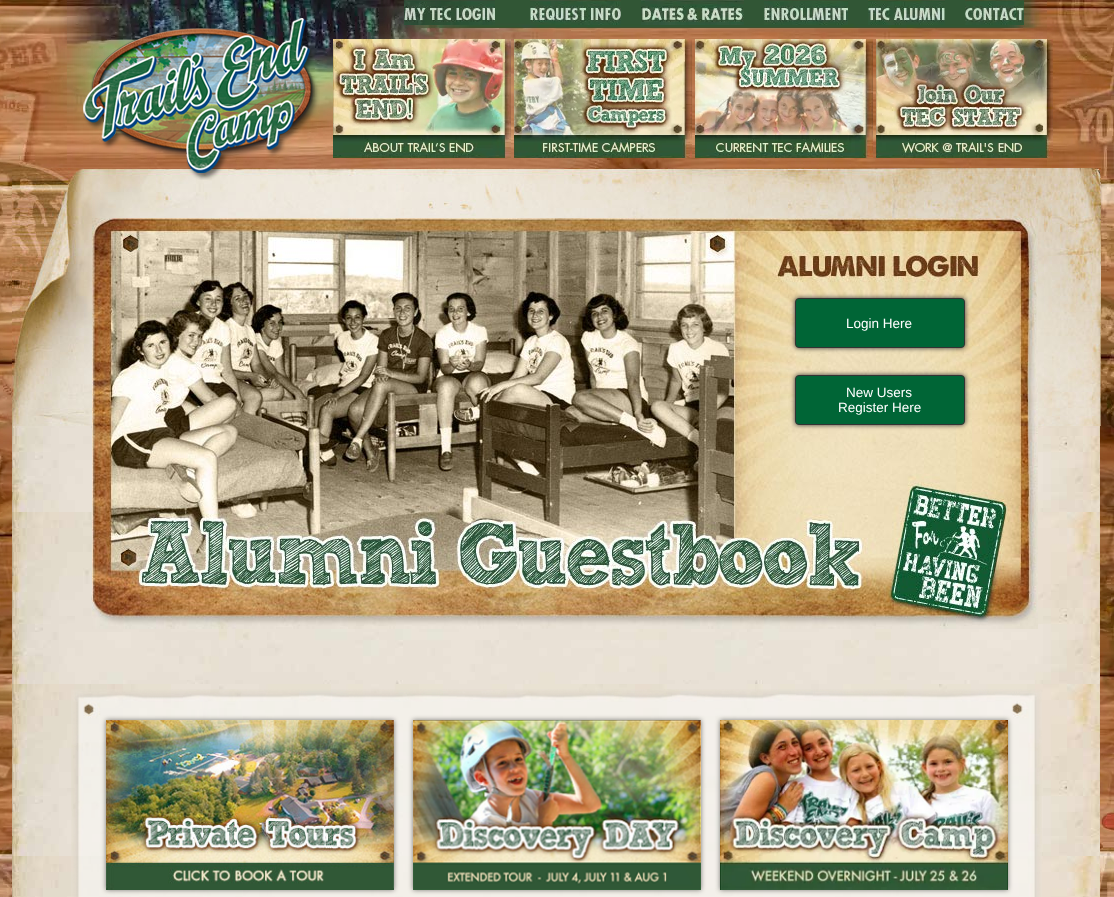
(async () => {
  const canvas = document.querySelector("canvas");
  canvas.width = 1114;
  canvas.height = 897;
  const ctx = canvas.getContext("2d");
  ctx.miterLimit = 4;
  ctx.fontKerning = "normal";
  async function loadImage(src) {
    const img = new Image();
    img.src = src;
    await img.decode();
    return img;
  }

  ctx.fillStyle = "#ffffff";
  ctx.fillRect(0, 0, 1114, 897);
  ctx.drawImage(await loadImage("img/1.png"), 0, 0, 1114, 897);
  ctx.drawImage(await loadImage("img/2.png"), 67, 0, 980, 168);
  ctx.drawImage(await loadImage("img/15.png"), 12, 168, 1089, 258);
  ctx.drawImage(await loadImage("img/3.png"), 83, 18, 237, 162);
  ctx.drawImage(await loadImage("img/4.png"), 404, 0, 91, 25);
  ctx.drawImage(await loadImage("img/5.png"), 530, 0, 91, 25);
  ctx.drawImage(await loadImage("img/6.png"), 641, 0, 103, 25);
  ctx.drawImage(await loadImage("img/7.png"), 764, 0, 84, 25);
  ctx.drawImage(await loadImage("img/8.png"), 868, 0, 77, 25);
  ctx.drawImage(await loadImage("img/9.png"), 965, 0, 59, 25);
  ctx.drawImage(await loadImage("img/10.png"), 333, 39, 178, 119);
  ctx.drawImage(await loadImage("img/11.png"), 514, 39, 178, 119);
  ctx.drawImage(await loadImage("img/12.png"), 695, 39, 178, 119);
  ctx.drawImage(await loadImage("img/13.png"), 876, 39, 177, 119);
  ctx.drawImage(await loadImage("img/14.png"), 12, 426, 1088, 471);
  ctx.drawImage(await loadImage("img/16.png"), 92, 218, 946, 411);
  ctx.fillStyle = "#333333";
  ctx.filter = "blur(2.5px)";
  ctx.beginPath();
  ctx.roundRect(795, 298, 170, 50, 4);
  ctx.fill();
  ctx.filter = "none";
  ctx.fillStyle = "#006536";
  ctx.beginPath();
  ctx.roundRect(795.5, 298.5, 169, 49, 3.5);
  ctx.fill();
  ctx.strokeStyle = "#333333";
  ctx.stroke();
  ctx.fillStyle = "#333333";
  ctx.filter = "blur(2.5px)";
  ctx.beginPath();
  ctx.roundRect(795, 375, 170, 50, 4);
  ctx.fill();
  ctx.filter = "none";
  ctx.fillStyle = "#006536";
  ctx.beginPath();
  ctx.roundRect(795.5, 375.5, 169, 49, 3.5);
  ctx.fill();
  ctx.stroke();
  ctx.drawImage(await loadImage("img/17.png"), 71, 689, 971, 208);
  ctx.fillStyle = "rgba(0, 0, 0, 0.5)";
  ctx.filter = "blur(2.5px)";
  ctx.beginPath();
  ctx.rect(106, 720, 288, 170);
  ctx.fill();
  ctx.filter = "none";
  ctx.drawImage(await loadImage("img/18.png"), 106, 720, 288, 170);
  ctx.filter = "blur(2.5px)";
  ctx.beginPath();
  ctx.rect(413, 720, 288, 170);
  ctx.fill();
  ctx.filter = "none";
  ctx.drawImage(await loadImage("img/19.png"), 413, 720, 288, 170);
  ctx.filter = "blur(2.5px)";
  ctx.beginPath();
  ctx.rect(720, 720, 288, 170);
  ctx.fill();
  ctx.filter = "none";
  ctx.drawImage(await loadImage("img/20.png"), 720, 720, 288, 170);
  ctx.font = "13.5px Liberation Sans";
  ctx.fillStyle = "#ffffff";
  for (const [text, x, y] of [
    ["Login Here", 846, 328],
    ["New Users", 846, 397],
    ["Register Here", 838, 412],
  ]) {
    ctx.fillText(text, x, y);
  }
})();
